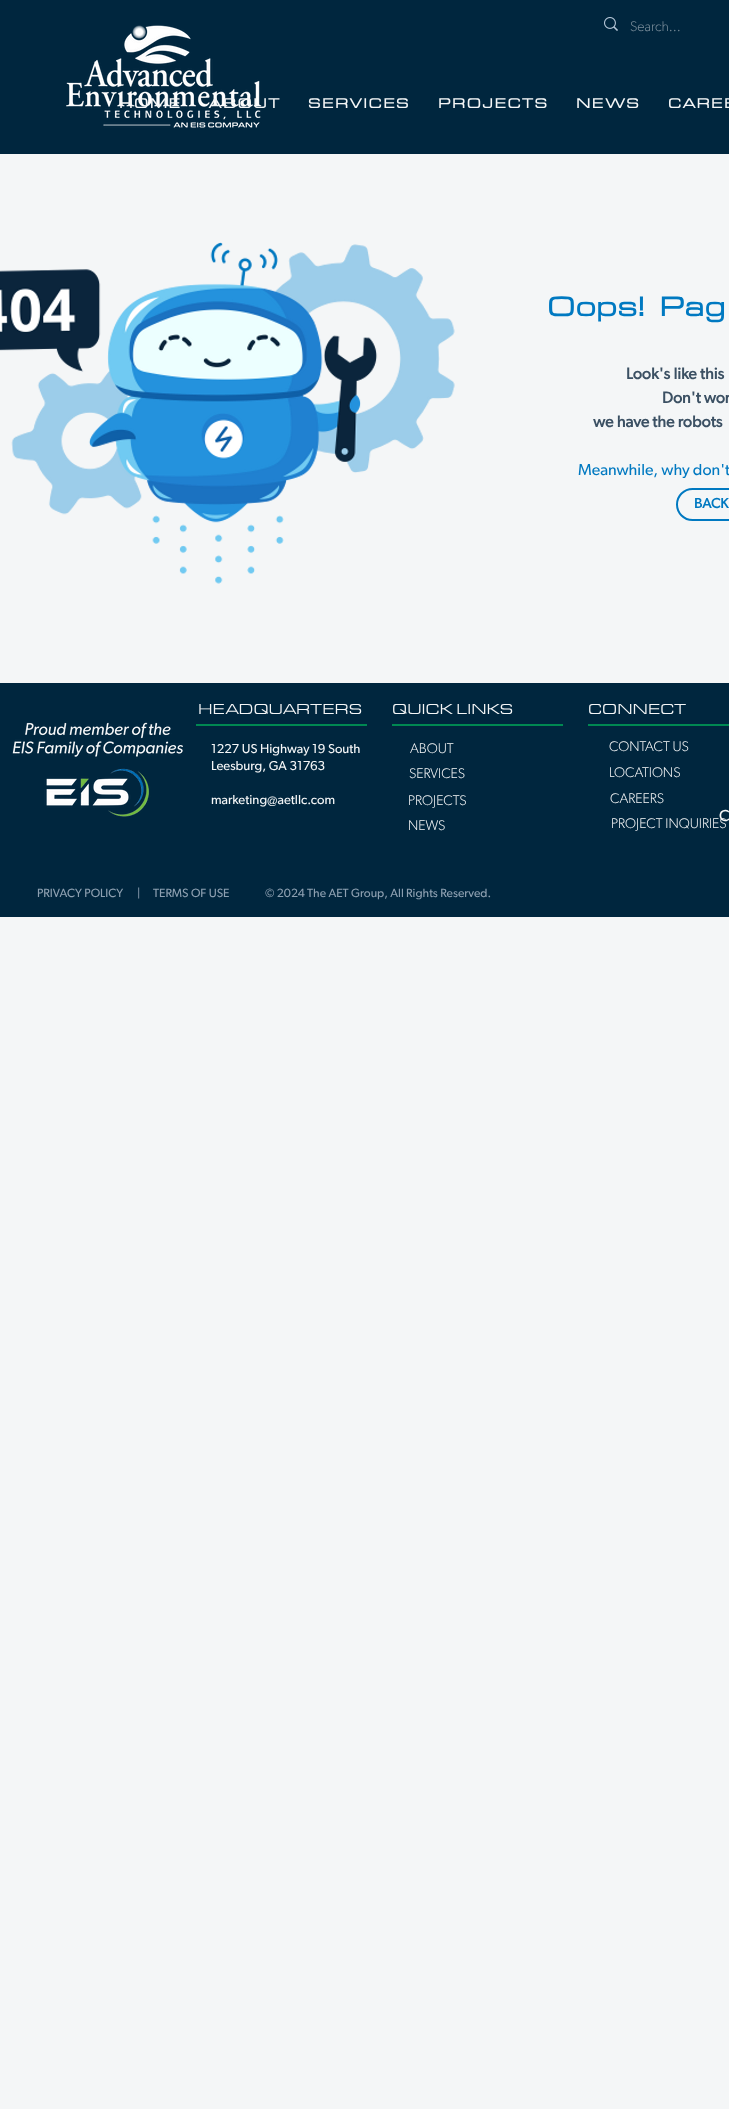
(async () => {
  const canvas = document.querySelector("canvas");
  canvas.width = 729;
  canvas.height = 2109;
  const ctx = canvas.getContext("2d");
  ctx.miterLimit = 4;
  ctx.fontKerning = "normal";
  async function loadImage(src) {
    const img = new Image();
    img.src = src;
    await img.decode();
    return img;
  }

  ctx.fillStyle = "#f4f6f7";
  ctx.fillRect(0, 0, 729, 2109);
  ctx.fillStyle = "#00263e";
  ctx.fillRect(0, 0, 729, 154);
  ctx.drawImage(await loadImage("img/1.png"), 604, 17, 14, 14);
  ctx.drawImage(await loadImage("img/2.png"), 66, 25, 196, 103);
  ctx.drawImage(await loadImage("img/3.png"), 0, 242, 455, 342);
  ctx.beginPath();
  ctx.roundRect(677, 489, 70, 31, 15.5);
  ctx.strokeStyle = "#0079c1";
  ctx.lineWidth = 2;
  ctx.stroke();
  ctx.fillRect(0, 683, 729, 234);
  ctx.drawImage(await loadImage("img/4.png"), 12, 722, 171, 95);
  for (const [x, y, w, h, color] of [
    [196, 724, 171, 2, "#008852"],
    [392, 724, 171, 2, "#008852"],
    [588, 724, 141, 2, "#008852"],
  ]) {
    ctx.fillStyle = color;
    ctx.fillRect(x, y, w, h);
  }
  ctx.font = "300 14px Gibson";
  ctx.fillStyle = "#7a8e9b";
  ctx.fillText("Search...", 630, 31);
  ctx.letterSpacing = "1.5px";
  ctx.font = "bold 14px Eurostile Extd";
  ctx.fillStyle = "#f4f6f7";
  for (const [text, x, y] of [
    ["HOME", 119, 108],
    ["ABOUT", 209, 108],
    ["SERVICES", 308, 108],
    ["PROJECTS", 438, 108],
    ["NEWS", 576, 108],
    ["CAREE", 668, 108],
  ]) {
    ctx.fillText(text, x, y);
  }
  ctx.letterSpacing = "0px";
  ctx.font = "bold 28px Eurostile Extd";
  ctx.fillStyle = "#0079c1";
  ctx.fillText("Oops!  Pag", 547, 316);
  ctx.font = "bold 16px Gibson";
  ctx.fillStyle = "#3b5063";
  for (const [text, x, y] of [
    ["Look's like this", 626, 379],
    ["Don't wor", 662, 403],
    ["we have the robots", 593, 427],
  ]) {
    ctx.fillText(text, x, y);
  }
  ctx.font = "16px Gibson";
  ctx.fillStyle = "#0079c1";
  ctx.fillText("Meanwhile, why don't", 578, 475);
  ctx.font = "bold 14px Gibson";
  ctx.fillText("BACK", 694, 508);
  ctx.font = "15px Eurostile Extd";
  ctx.fillStyle = "#f4f6f7";
  ctx.fillText("HEADQUARTERS", 198, 714);
  ctx.font = "13px Gibson";
  for (const [text, x, y] of [
    ["1227 US Highway 19 South", 211, 753],
    ["Leesburg, GA 31763", 211, 770],
    ["marketing@aetllc.com", 211, 804],
  ]) {
    ctx.fillText(text, x, y);
  }
  ctx.font = "15px Eurostile Extd";
  ctx.fillText("QUICK LINKS", 392, 714);
  ctx.font = "300 14px Gibson";
  for (const [text, x, y] of [
    ["ABOUT", 410, 753],
    ["SERVICES", 409, 778],
    ["PROJECTS", 408, 805],
    ["NEWS", 408, 830],
  ]) {
    ctx.fillText(text, x, y);
  }
  ctx.font = "15px Eurostile Extd";
  ctx.fillText("CONNECT", 588, 714);
  ctx.font = "300 14px Gibson";
  for (const [text, x, y] of [
    ["CONTACT US", 609, 751],
    ["LOCATIONS", 609, 777],
    ["CAREERS", 610, 803],
    ["PROJECT INQUIRIES", 611, 828],
  ]) {
    ctx.fillText(text, x, y);
  }
  ctx.letterSpacing = "1px";
  ctx.font = "16px Gibson";
  ctx.fillText("C", 719, 821);
  ctx.letterSpacing = "0px";
  ctx.font = "12px Gibson";
  ctx.fillStyle = "#8da0b1";
  for (const [text, x, y] of [
    ["PRIVACY POLICY", 37, 897],
    ["|", 137, 897],
    ["TERMS OF USE", 153, 897],
    ["© 2024 The AET Group, All Rights Reserved.", 265, 897],
  ]) {
    ctx.fillText(text, x, y);
  }
})();
